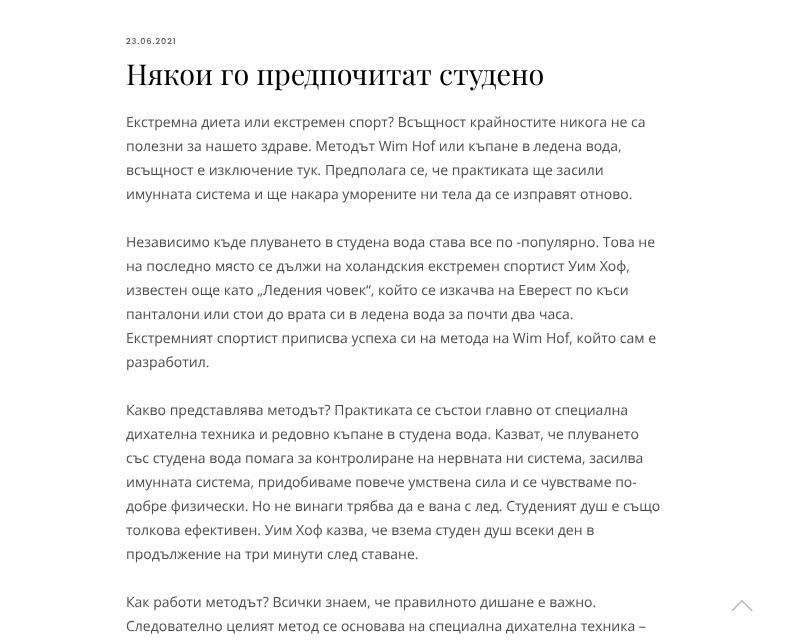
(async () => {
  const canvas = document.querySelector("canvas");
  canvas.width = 786;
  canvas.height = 640;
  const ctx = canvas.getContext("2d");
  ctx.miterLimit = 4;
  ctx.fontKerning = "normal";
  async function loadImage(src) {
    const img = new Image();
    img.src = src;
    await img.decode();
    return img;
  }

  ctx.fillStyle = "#ffffff";
  ctx.fillRect(0, 0, 786, 640);
  ctx.drawImage(await loadImage("img/1.png"), 731, 600, 22, 12);
  ctx.letterSpacing = "1px";
  ctx.font = "500 8px Poppins";
  ctx.fillStyle = "#4f4f4f";
  ctx.fillText("23.06.2021", 126, 44);
  ctx.letterSpacing = "0px";
  ctx.font = "28.75px Playfair Display";
  ctx.fillStyle = "#000000";
  ctx.fillText("Някои го предпочитат студено", 126, 85);
  ctx.font = "14px Open Sans";
  ctx.fillStyle = "#4f4f4f";
  for (const [text, x, y] of [
    ["Екстремна диета или екстремен спорт? Всъщност крайностите никога не са", 126, 127],
    ["полезни за нашето здраве. Методът Wim Hof или къпане в ледена вода,", 126, 151],
    ["всъщност е изключение тук. Предполага се, че практиката ще засили", 126, 175],
    ["имунната система и ще накара уморените ни тела да се изправят отново.", 126, 199],
    ["Независимо къде плуването в студена вода става все по -популярно. Това не", 126, 247],
    ["на последно място се дължи на холандския екстремен спортист Уим Хоф,", 126, 271],
    ["известен още като „Ледения човек“, който се изкачва на Еверест по къси", 126, 295],
    ["панталони или стои до врата си в ледена вода за почти два часа.", 126, 319],
    ["Екстремният спортист приписва успеха си на метода на Wim Hof, който сам е", 126, 343],
    ["разработил.", 126, 367],
    ["Какво представлява методът? Практиката се състои главно от специална", 126, 415],
    ["дихателна техника и редовно къпане в студена вода. Казват, че плуването", 126, 439],
    ["със студена вода помага за контролиране на нервната ни система, засилва", 126, 463],
    ["имунната система, придобиваме повече умствена сила и се чувстваме по-", 126, 487],
    ["добре физически. Но не винаги трябва да е вана с лед. Студеният душ е също", 126, 511],
    ["толкова ефективен. Уим Хоф казва, че взема студен душ всеки ден в", 126, 535],
    ["продължение на три минути след ставане.", 126, 559],
    ["Как работи методът? Всички знаем, че правилното дишане е важно.", 126, 607],
    ["Следователно целият метод се основава на специална дихателна техника –", 126, 631],
  ]) {
    ctx.fillText(text, x, y);
  }
})();
